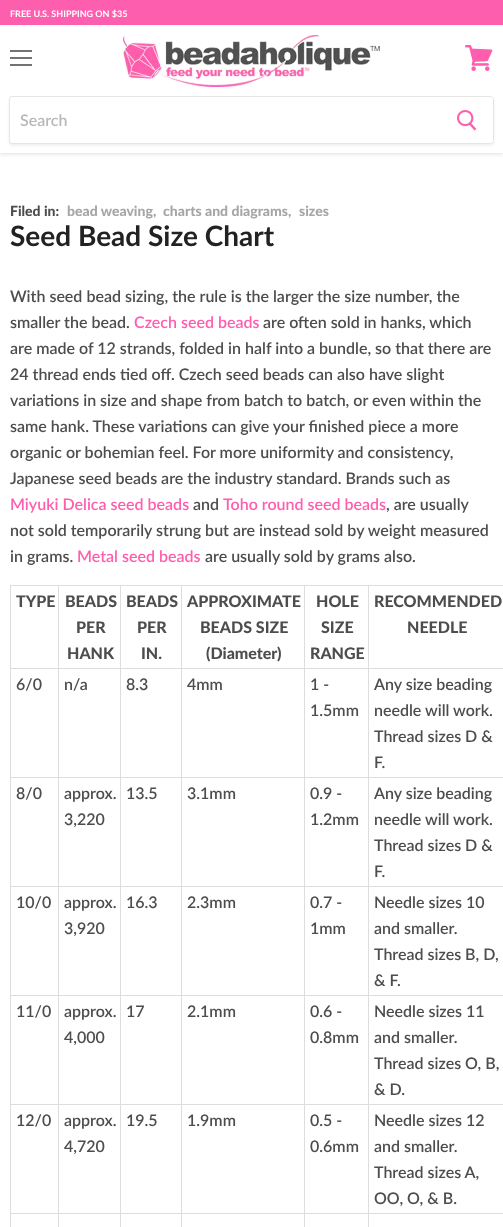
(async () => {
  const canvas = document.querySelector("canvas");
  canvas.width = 503;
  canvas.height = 1227;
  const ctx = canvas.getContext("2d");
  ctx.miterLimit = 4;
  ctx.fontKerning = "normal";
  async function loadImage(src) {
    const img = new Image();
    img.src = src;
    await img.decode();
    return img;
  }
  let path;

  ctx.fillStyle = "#ffffff";
  ctx.fillRect(0, 0, 503, 1227);
  ctx.save();
  ctx.beginPath();
  ctx.rect(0, 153, 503, 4);
  ctx.clip();
  ctx.fillStyle = "rgba(127, 127, 127, 0.25)";
  ctx.filter = "blur(2px)";
  ctx.beginPath();
  ctx.rect(0, 1, 503, 153);
  ctx.fill();
  ctx.filter = "none";
  ctx.restore();
  for (const [x, y, w, h, color] of [
    [0, 0, 503, 25, "#fe5eae"],
    [10, 50, 22, 2, "#727272"],
    [10, 57, 22, 2, "#727272"],
    [10, 64, 22, 2, "#727272"],
  ]) {
    ctx.fillStyle = color;
    ctx.fillRect(x, y, w, h);
  }
  ctx.drawImage(await loadImage("img/1.png"), 465, 45, 28, 26);
  ctx.drawImage(await loadImage("img/2.png"), 123, 35, 257, 52);
  ctx.save();
  path = new Path2D("M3 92H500V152H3ZM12 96H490C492 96 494 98 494 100V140C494 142 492 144 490 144H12C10.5 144 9 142.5 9 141V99C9 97.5 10.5 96 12 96Z");
  ctx.clip(path, "evenodd");
  ctx.fillStyle = "rgba(127, 127, 127, 0.11)";
  ctx.filter = "blur(1.5px)";
  ctx.beginPath();
  ctx.roundRect(9, 98, 485, 48, 4);
  ctx.fill();
  ctx.filter = "none";
  ctx.restore();
  ctx.beginPath();
  ctx.roundRect(9.5, 96.5, 484, 47, [2.5, 3.5, 3.5, 2.5]);
  ctx.strokeStyle = "rgba(127, 127, 127, 0.2)";
  ctx.stroke();
  ctx.fillStyle = "#ffffff";
  ctx.beginPath();
  ctx.roundRect(440.5, 97.5, 52, 45, [0, 2.5, 2.5, 0]);
  ctx.fill();
  ctx.strokeStyle = "#ffffff";
  ctx.stroke();
  ctx.drawImage(await loadImage("img/3.png"), 457, 110, 20, 21);
  for (const [x, y, w, h, color] of [
    [10, 585, 493, 1, "#dddddd"],
    [10, 585, 1, 642, "#dddddd"],
    [368, 668, 135, 1, "#dddddd"],
    [368, 777, 135, 1, "#dddddd"],
    [368, 886, 135, 1, "#dddddd"],
    [368, 995, 135, 1, "#dddddd"],
    [368, 1104, 135, 1, "#dddddd"],
    [368, 1213, 135, 1, "#dddddd"],
    [368, 1213, 1, 14, "#dddddd"],
    [304, 1213, 65, 1, "#dddddd"],
    [368, 1104, 1, 110, "#dddddd"],
    [304, 1104, 65, 1, "#dddddd"],
    [368, 995, 1, 110, "#dddddd"],
    [304, 995, 65, 1, "#dddddd"],
    [368, 886, 1, 110, "#dddddd"],
    [304, 886, 65, 1, "#dddddd"],
    [368, 777, 1, 110, "#dddddd"],
    [304, 777, 65, 1, "#dddddd"],
    [368, 668, 1, 110, "#dddddd"],
    [304, 668, 65, 1, "#dddddd"],
    [304, 1213, 1, 14, "#dddddd"],
    [181, 1213, 124, 1, "#dddddd"],
    [304, 1104, 1, 110, "#dddddd"],
    [181, 1104, 124, 1, "#dddddd"],
    [304, 995, 1, 110, "#dddddd"],
    [181, 995, 124, 1, "#dddddd"],
    [304, 886, 1, 110, "#dddddd"],
    [181, 886, 124, 1, "#dddddd"],
    [304, 777, 1, 110, "#dddddd"],
    [181, 777, 124, 1, "#dddddd"],
    [304, 668, 1, 110, "#dddddd"],
    [181, 668, 124, 1, "#dddddd"],
    [181, 1213, 1, 14, "#dddddd"],
    [120, 1213, 62, 1, "#dddddd"],
    [181, 1104, 1, 110, "#dddddd"],
    [120, 1104, 62, 1, "#dddddd"],
    [181, 995, 1, 110, "#dddddd"],
    [120, 995, 62, 1, "#dddddd"],
    [181, 886, 1, 110, "#dddddd"],
    [120, 886, 62, 1, "#dddddd"],
    [181, 777, 1, 110, "#dddddd"],
    [120, 777, 62, 1, "#dddddd"],
    [181, 668, 1, 110, "#dddddd"],
    [120, 668, 62, 1, "#dddddd"],
    [120, 1213, 1, 14, "#dddddd"],
    [58, 1213, 63, 1, "#dddddd"],
    [120, 1104, 1, 110, "#dddddd"],
    [58, 1104, 63, 1, "#dddddd"],
    [120, 995, 1, 110, "#dddddd"],
    [58, 995, 63, 1, "#dddddd"],
    [120, 886, 1, 110, "#dddddd"],
    [58, 886, 63, 1, "#dddddd"],
    [120, 777, 1, 110, "#dddddd"],
    [58, 777, 63, 1, "#dddddd"],
    [120, 668, 1, 110, "#dddddd"],
    [58, 668, 63, 1, "#dddddd"],
    [58, 1213, 1, 14, "#dddddd"],
    [10, 1213, 49, 1, "#dddddd"],
    [58, 1104, 1, 110, "#dddddd"],
    [10, 1104, 49, 1, "#dddddd"],
    [58, 995, 1, 110, "#dddddd"],
    [10, 995, 49, 1, "#dddddd"],
    [58, 886, 1, 110, "#dddddd"],
    [10, 886, 49, 1, "#dddddd"],
    [58, 777, 1, 110, "#dddddd"],
    [10, 777, 49, 1, "#dddddd"],
    [58, 668, 1, 110, "#dddddd"],
    [10, 668, 49, 1, "#dddddd"],
    [58, 585, 1, 84, "#dddddd"],
    [120, 585, 1, 84, "#dddddd"],
    [181, 585, 1, 84, "#dddddd"],
    [304, 585, 1, 84, "#dddddd"],
    [368, 585, 1, 84, "#dddddd"],
  ]) {
    ctx.fillStyle = color;
    ctx.fillRect(x, y, w, h);
  }
  ctx.font = "bold 9px Lato";
  ctx.fillStyle = "#ffffff";
  ctx.fillText("FREE U.S. SHIPPING ON $35", 10, 17);
  ctx.font = "600 16px Lato";
  ctx.fillStyle = "#b8b8b8";
  ctx.fillText("Search", 20, 126);
  ctx.font = "900 14px Lato";
  ctx.fillStyle = "#4d4d4d";
  ctx.fillText("Filed in:", 10, 216);
  ctx.fillStyle = "#a6a6a6";
  for (const [text, x, y] of [
    ["bead weaving,", 67, 216],
    ["charts and diagrams,", 163, 216],
    ["sizes", 299, 216],
  ]) {
    ctx.fillText(text, x, y);
  }
  ctx.font = "bold 28px Lato";
  ctx.fillStyle = "#222222";
  ctx.fillText("Seed Bead Size Chart", 10, 246);
  ctx.font = "600 16px Lato";
  ctx.fillStyle = "#4d4d4d";
  ctx.fillText("With seed bead sizing, the rule is the larger the size number, the", 10, 302);
  ctx.fillText("smaller the bead.", 10, 328);
  ctx.fillStyle = "#ff5dae";
  ctx.fillText("Czech seed beads", 134, 328);
  ctx.fillStyle = "#4d4d4d";
  for (const [text, x, y] of [
    ["are often sold in hanks, which", 263, 328],
    ["are made of 12 strands, folded in half into a bundle, so that there are", 10, 354],
    ["24 thread ends tied off. Czech seed beads can also have slight", 10, 380],
    ["variations in size and shape from batch to batch, or even within the", 10, 406],
    ["same hank. These variations can give your finished piece a more", 10, 432],
    ["organic or bohemian feel. For more uniformity and consistency,", 10, 458],
    ["Japanese seed beads are the industry standard. Brands such as", 10, 484],
  ]) {
    ctx.fillText(text, x, y);
  }
  ctx.fillStyle = "#ff5dae";
  ctx.fillText("Miyuki Delica seed beads", 10, 510);
  ctx.fillStyle = "#4d4d4d";
  ctx.fillText("and", 193, 510);
  ctx.fillStyle = "#ff5dae";
  ctx.fillText("Toho round seed beads", 223, 510);
  ctx.fillStyle = "#4d4d4d";
  for (const [text, x, y] of [
    [", are usually", 386, 510],
    ["not sold temporarily strung but are instead sold by weight measured", 10, 536],
    ["in grams.", 10, 562],
  ]) {
    ctx.fillText(text, x, y);
  }
  ctx.fillStyle = "#ff5dae";
  ctx.fillText("Metal seed beads", 77, 562);
  ctx.fillStyle = "#4d4d4d";
  ctx.fillText("are usually sold by grams also.", 205, 562);
  ctx.font = "900 16px Lato";
  for (const [text, x, y] of [
    ["TYPE", 16, 607],
    ["BEADS", 65, 607],
    ["PER", 76, 633],
    ["HANK", 67, 659],
    ["BEADS", 126, 607],
    ["PER", 137, 633],
    ["IN.", 141, 659],
    ["APPROXIMATE", 187, 607],
    ["BEADS SIZE", 200, 633],
    ["(Diameter)", 206, 659],
    ["HOLE", 316, 607],
    ["SIZE", 321, 633],
    ["RANGE", 310, 659],
    ["RECOMMENDED", 374, 607],
    ["NEEDLE", 407, 633],
  ]) {
    ctx.fillText(text, x, y);
  }
  ctx.font = "600 16px Lato";
  for (const [text, x, y] of [
    ["6/0", 16, 690],
    ["n/a", 64, 690],
    ["8.3", 126, 690],
    ["4mm", 187, 690],
    ["1 -", 310, 690],
    ["1.5mm", 310, 716],
    ["Any size beading", 374, 690],
    ["needle will work.", 374, 716],
    ["Thread sizes D &", 374, 742],
    ["F.", 374, 768],
    ["8/0", 16, 799],
    ["approx.", 64, 799],
    ["3,220", 64, 825],
    ["13.5", 126, 799],
    ["3.1mm", 187, 799],
    ["0.9 -", 310, 799],
    ["1.2mm", 310, 825],
    ["Any size beading", 374, 799],
    ["needle will work.", 374, 825],
    ["Thread sizes D &", 374, 851],
    ["F.", 374, 877],
    ["10/0", 16, 908],
    ["approx.", 64, 908],
    ["3,920", 64, 934],
    ["16.3", 126, 908],
    ["2.3mm", 187, 908],
    ["0.7 -", 310, 908],
    ["1mm", 310, 934],
    ["Needle sizes 10", 374, 908],
    ["and smaller.", 374, 934],
    ["Thread sizes B, D,", 374, 960],
    ["& F.", 374, 986],
    ["11/0", 16, 1017],
    ["approx.", 64, 1017],
    ["4,000", 64, 1043],
    ["17", 126, 1017],
    ["2.1mm", 187, 1017],
    ["0.6 -", 310, 1017],
    ["0.8mm", 310, 1043],
    ["Needle sizes 11", 374, 1017],
    ["and smaller.", 374, 1043],
    ["Thread sizes O, B,", 374, 1069],
    ["& D.", 374, 1095],
    ["12/0", 16, 1126],
    ["approx.", 64, 1126],
    ["4,720", 64, 1152],
    ["19.5", 126, 1126],
    ["1.9mm", 187, 1126],
    ["0.5 -", 310, 1126],
    ["0.6mm", 310, 1152],
    ["Needle sizes 12", 374, 1126],
    ["and smaller.", 374, 1152],
    ["Thread sizes A,", 374, 1178],
    ["OO, O, & B.", 374, 1204],
  ]) {
    ctx.fillText(text, x, y);
  }
})();
